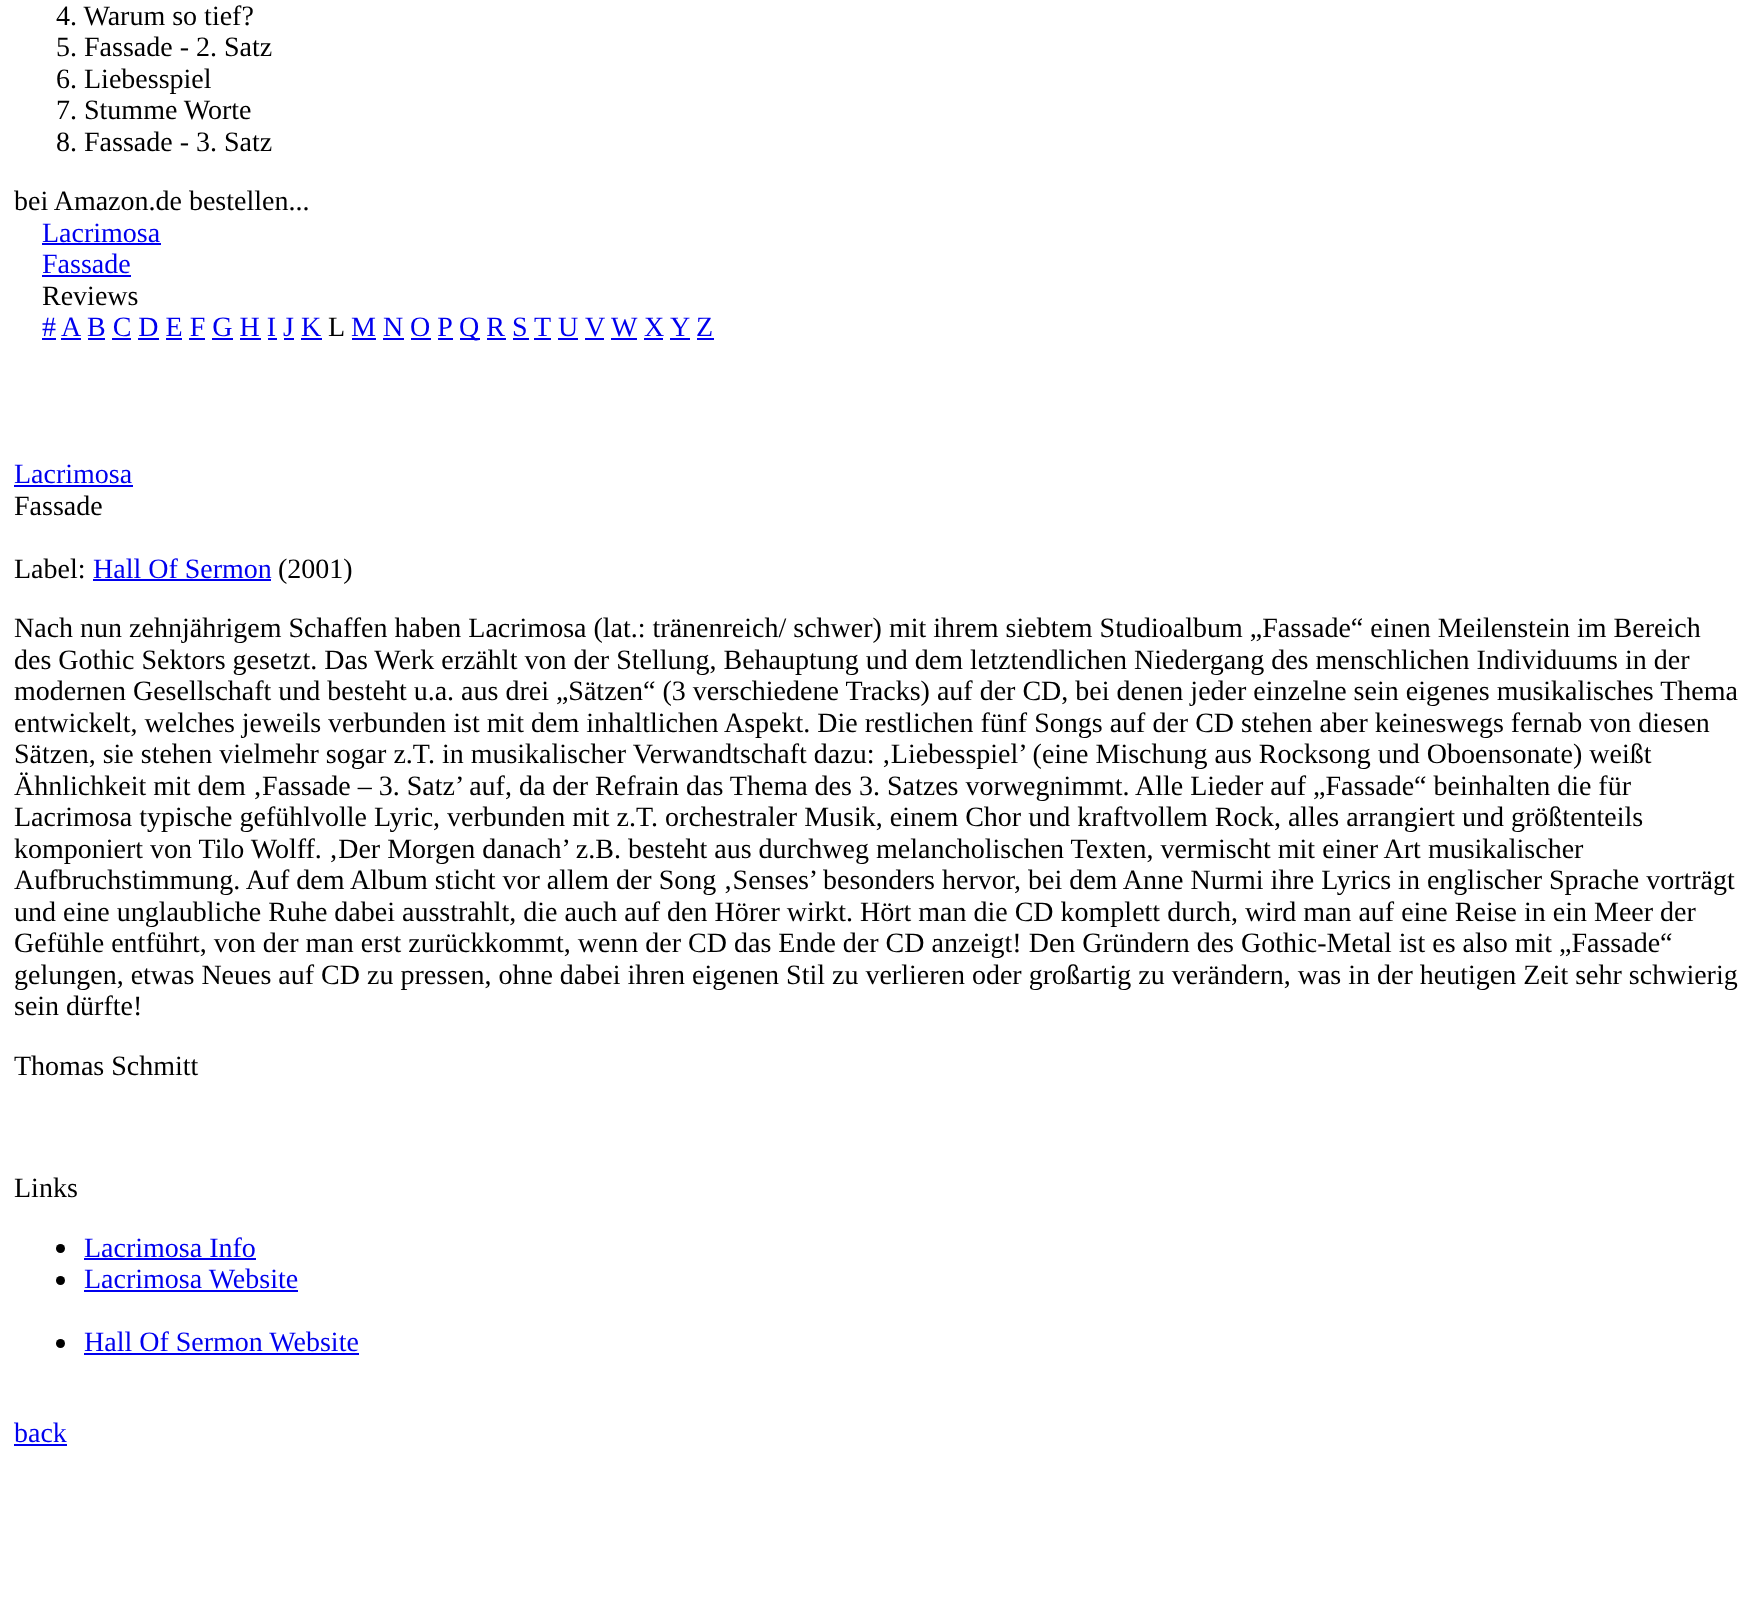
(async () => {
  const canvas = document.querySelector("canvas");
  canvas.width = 1754;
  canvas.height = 1604;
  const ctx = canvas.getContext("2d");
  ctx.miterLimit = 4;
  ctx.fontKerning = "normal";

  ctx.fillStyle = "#ffffff";
  ctx.fillRect(0, 0, 1754, 1604);
  for (const [x, y, w, h, color] of [
    [42, 243, 119, 2, "#0000ee"],
    [42, 275, 89, 2, "#0000ee"],
    [42, 338, 14, 2, "#0000ee"],
    [61, 338, 20, 2, "#0000ee"],
    [88, 338, 17, 2, "#0000ee"],
    [352, 338, 24, 2, "#0000ee"],
    [460, 338, 20, 2, "#0000ee"],
    [534, 338, 17, 2, "#0000ee"],
    [558, 338, 20, 2, "#0000ee"],
    [585, 338, 19, 2, "#0000ee"],
    [611, 338, 26, 2, "#0000ee"],
    [644, 338, 19, 2, "#0000ee"],
    [670, 338, 20, 2, "#0000ee"],
    [697, 338, 17, 2, "#0000ee"],
    [112, 338, 19, 2, "#0000ee"],
    [138, 338, 21, 2, "#0000ee"],
    [166, 338, 16, 2, "#0000ee"],
    [189, 338, 16, 2, "#0000ee"],
    [212, 338, 21, 2, "#0000ee"],
    [240, 338, 21, 2, "#0000ee"],
    [268, 338, 9, 2, "#0000ee"],
    [284, 338, 10, 2, "#0000ee"],
    [301, 338, 21, 2, "#0000ee"],
    [383, 338, 21, 2, "#0000ee"],
    [411, 338, 20, 2, "#0000ee"],
    [438, 338, 15, 2, "#0000ee"],
    [487, 338, 19, 2, "#0000ee"],
    [513, 338, 16, 2, "#0000ee"],
    [14, 485, 119, 2, "#0000ee"],
    [93, 579, 178, 2, "#0000ee"],
  ]) {
    ctx.fillStyle = color;
    ctx.fillRect(x, y, w, h);
  }
  ctx.fillStyle = "#000000";
  ctx.beginPath();
  ctx.arc(60.5, 1248.5, 4.5, 0, Math.PI * 2);
  ctx.fill();
  ctx.fillStyle = "#0000ee";
  ctx.fillRect(84, 1258, 172, 2);
  ctx.fillStyle = "#000000";
  ctx.beginPath();
  ctx.arc(60.5, 1280.5, 4.5, 0, Math.PI * 2);
  ctx.fill();
  ctx.fillStyle = "#0000ee";
  ctx.fillRect(84, 1290, 214, 2);
  ctx.fillStyle = "#000000";
  ctx.beginPath();
  ctx.arc(60.5, 1343.5, 4.5, 0, Math.PI * 2);
  ctx.fill();
  ctx.fillStyle = "#0000ee";
  ctx.fillRect(84, 1353, 275, 2);
  ctx.fillRect(14, 1444, 53, 2);
  ctx.font = "28px Liberation Serif";
  ctx.fillStyle = "#000000";
  for (const [text, x, y] of [
    ["4. Warum so tief?", 56, 25],
    ["5. Fassade - 2. Satz", 56, 56],
    ["6. Liebesspiel", 56, 88],
    ["7. Stumme Worte", 56, 119],
    ["8. Fassade - 3. Satz", 56, 151],
    ["bei Amazon.de bestellen...", 14, 210],
  ]) {
    ctx.fillText(text, x, y);
  }
  ctx.fillStyle = "#0000ee";
  ctx.fillText("Lacrimosa", 42, 242);
  ctx.fillText("Fassade", 42, 273);
  ctx.fillStyle = "#000000";
  ctx.fillText("Reviews", 42, 305);
  ctx.fillStyle = "#0000ee";
  for (const [text, x, y] of [
    ["#", 42, 336],
    ["A", 61, 336],
    ["B C D E F G H I J K", 87, 336],
  ]) {
    ctx.fillText(text, x, y);
  }
  ctx.fillStyle = "#000000";
  ctx.fillText("L", 328, 336);
  ctx.fillStyle = "#0000ee";
  for (const [text, x, y] of [
    ["M N O P", 351, 336],
    ["Q R S", 459, 336],
    ["T", 534, 336],
    ["U", 558, 336],
    ["V", 585, 336],
    ["W", 611, 336],
    ["X", 644, 336],
    ["Y", 670, 336],
    ["Z", 696, 336],
    ["Lacrimosa", 14, 483],
  ]) {
    ctx.fillText(text, x, y);
  }
  ctx.fillStyle = "#000000";
  ctx.fillText("Fassade", 14, 515);
  ctx.fillText("Label:", 14, 578);
  ctx.fillStyle = "#0000ee";
  ctx.fillText("Hall Of Sermon", 93, 578);
  ctx.fillStyle = "#000000";
  for (const [text, x, y] of [
    ["(2001)", 278, 578],
    ["Nach nun zehnjährigem Schaffen haben Lacrimosa (lat.: tränenreich/ schwer) mit ihrem siebtem Studioalbum „Fassade“ einen Meilenstein im Bereich", 14, 637],
    ["des Gothic Sektors gesetzt. Das Werk erzählt von der Stellung, Behauptung und dem letztendlichen Niedergang des menschlichen Individuums in der", 14, 669],
    ["modernen Gesellschaft und besteht u.a. aus drei „Sätzen“ (3 verschiedene Tracks) auf der CD, bei denen jeder einzelne sein eigenes musikalisches Thema", 14, 700],
    ["entwickelt, welches jeweils verbunden ist mit dem inhaltlichen Aspekt. Die restlichen fünf Songs auf der CD stehen aber keineswegs fernab von diesen", 14, 732],
    ["Sätzen, sie stehen vielmehr sogar z.T. in musikalischer Verwandtschaft dazu: ‚Liebesspiel’ (eine Mischung aus Rocksong und Oboensonate) weißt", 14, 763],
    ["Ähnlichkeit mit dem ‚Fassade – 3. Satz’ auf, da der Refrain das Thema des 3. Satzes vorwegnimmt. Alle Lieder auf „Fassade“ beinhalten die für", 14, 795],
    ["Lacrimosa typische gefühlvolle Lyric, verbunden mit z.T. orchestraler Musik, einem Chor und kraftvollem Rock, alles arrangiert und größtenteils", 14, 826],
    ["komponiert von Tilo Wolff. ‚Der Morgen danach’ z.B. besteht aus durchweg melancholischen Texten, vermischt mit einer Art musikalischer", 14, 858],
    ["Aufbruchstimmung. Auf dem Album sticht vor allem der Song ‚Senses’ besonders hervor, bei dem Anne Nurmi ihre Lyrics in englischer Sprache vorträgt", 14, 889],
    ["und eine unglaubliche Ruhe dabei ausstrahlt, die auch auf den Hörer wirkt. Hört man die CD komplett durch, wird man auf eine Reise in ein Meer der", 14, 921],
    ["Gefühle entführt, von der man erst zurückkommt, wenn der CD das Ende der CD anzeigt! Den Gründern des Gothic-Metal ist es also mit „Fassade“", 14, 952],
    ["gelungen, etwas Neues auf CD zu pressen, ohne dabei ihren eigenen Stil zu verlieren oder großartig zu verändern, was in der heutigen Zeit sehr schwierig", 14, 984],
    ["sein dürfte!", 14, 1015],
    ["Thomas Schmitt", 14, 1075],
    ["Links", 14, 1197],
  ]) {
    ctx.fillText(text, x, y);
  }
  ctx.fillStyle = "#0000ee";
  for (const [text, x, y] of [
    ["Lacrimosa Info", 84, 1257],
    ["Lacrimosa Website", 84, 1288],
    ["Hall Of Sermon Website", 84, 1351],
    ["back", 14, 1442],
  ]) {
    ctx.fillText(text, x, y);
  }
})();
